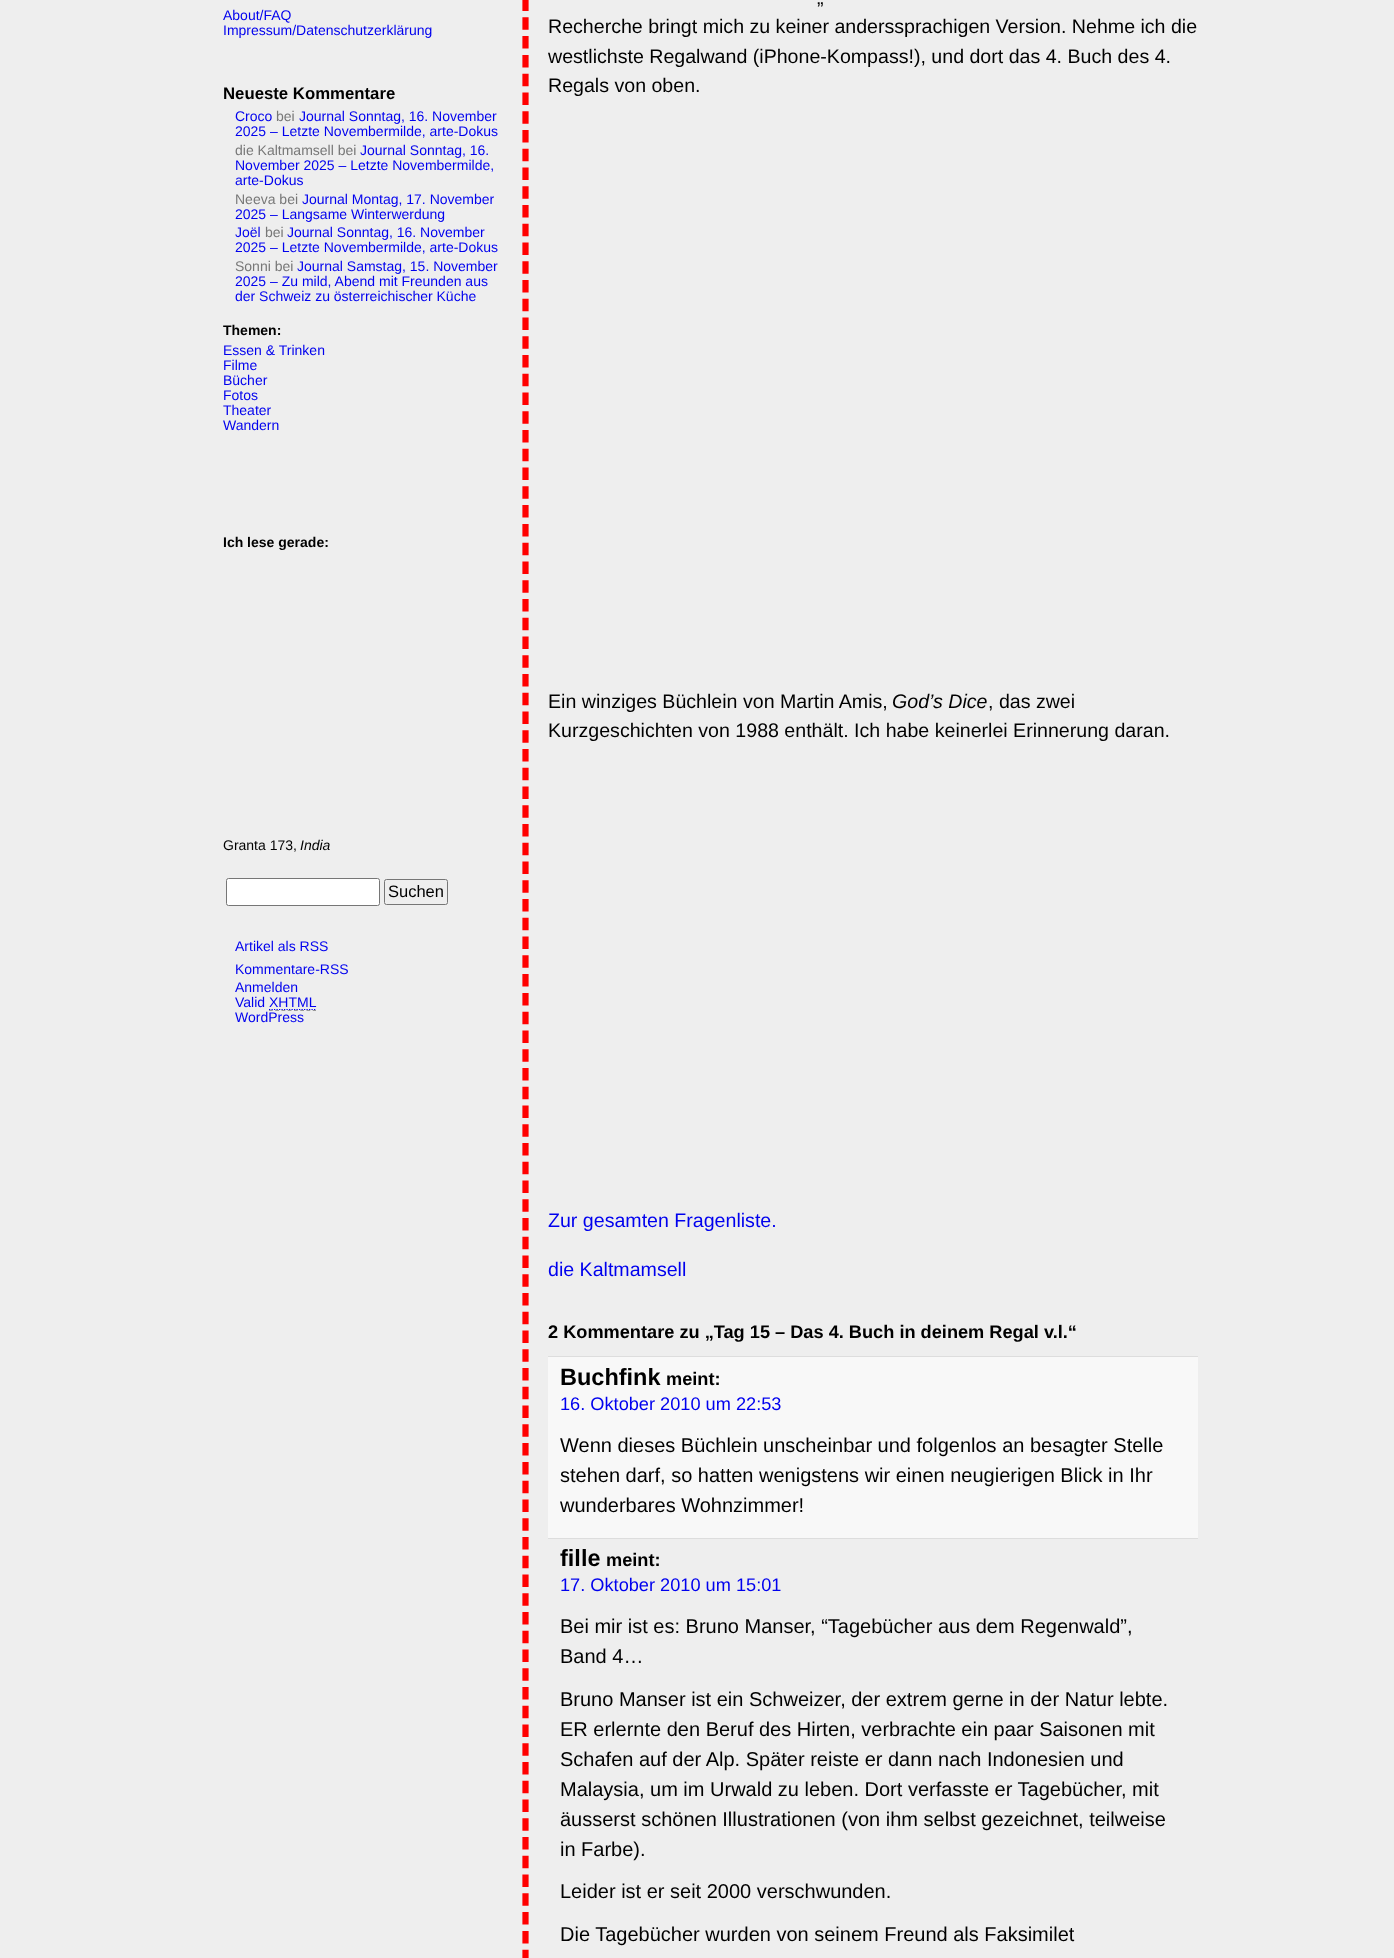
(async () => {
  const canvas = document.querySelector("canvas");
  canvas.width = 1394;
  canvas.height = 1958;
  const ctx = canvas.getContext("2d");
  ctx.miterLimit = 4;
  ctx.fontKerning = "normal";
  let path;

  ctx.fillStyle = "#eeeeee";
  ctx.fillRect(0, 0, 1394, 1958);
  ctx.fillStyle = "#ffffff";
  ctx.beginPath();
  ctx.roundRect(226.5, 878.5, 153, 27, 2);
  ctx.fill();
  ctx.strokeStyle = "#767676";
  ctx.stroke();
  ctx.beginPath();
  ctx.roundRect(384.5, 879.5, 63, 25, 2);
  ctx.stroke();
  path = new Path2D("M269 1010.5H316");
  ctx.strokeStyle = "#999999";
  ctx.lineWidth = 1.2;
  ctx.setLineDash([3.75, 2.5]);
  ctx.stroke(path);
  path = new Path2D("M269 1009.5H316.5");
  ctx.strokeStyle = "#0000ee";
  ctx.setLineDash([1.25, 1.25]);
  ctx.stroke(path);
  path = new Path2D("M525.5-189V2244");
  ctx.strokeStyle = "#ff0000";
  ctx.lineWidth = 6.2;
  ctx.setLineDash([12.5, 6.26]);
  ctx.stroke(path);
  for (const [x, y, w, h, color] of [
    [548, 1357, 650, 181, "#f8f8f8"],
    [548, 1356, 650, 1, "#dddddd"],
    [548, 1538, 650, 1, "#dddddd"],
  ]) {
    ctx.fillStyle = color;
    ctx.fillRect(x, y, w, h);
  }
  ctx.font = "14px Liberation Sans";
  ctx.fillStyle = "#0000ee";
  ctx.fillText("About/FAQ", 223, 20);
  ctx.fillText("Impressum/Datenschutzerklärung", 223, 35);
  ctx.font = "bold 16.75px Liberation Sans";
  ctx.fillStyle = "#000000";
  ctx.fillText("Neueste Kommentare", 223, 99);
  ctx.font = "14px Liberation Sans";
  ctx.fillStyle = "#0000ee";
  ctx.fillText("Croco", 235, 121);
  ctx.fillStyle = "#777777";
  ctx.fillText("bei", 276, 121);
  ctx.fillStyle = "#0000ee";
  ctx.fillText("Journal Sonntag, 16. November", 299, 121);
  ctx.fillText("2025 – Letzte Novembermilde, arte-Dokus", 235, 136);
  ctx.fillStyle = "#777777";
  ctx.fillText("die Kaltmamsell bei", 235, 155);
  ctx.fillStyle = "#0000ee";
  for (const [text, x, y] of [
    ["Journal Sonntag, 16.", 360, 155],
    ["November 2025 – Letzte Novembermilde,", 235, 170],
    ["arte-Dokus", 235, 185],
  ]) {
    ctx.fillText(text, x, y);
  }
  ctx.fillStyle = "#777777";
  ctx.fillText("Neeva bei", 235, 204);
  ctx.fillStyle = "#0000ee";
  for (const [text, x, y] of [
    ["Journal Montag, 17. November", 302, 204],
    ["2025 – Langsame Winterwerdung", 235, 219],
    ["Joël", 235, 237],
  ]) {
    ctx.fillText(text, x, y);
  }
  ctx.fillStyle = "#777777";
  ctx.fillText("bei", 265, 237);
  ctx.fillStyle = "#0000ee";
  ctx.fillText("Journal Sonntag, 16. November", 287, 237);
  ctx.fillText("2025 – Letzte Novembermilde, arte-Dokus", 235, 252);
  ctx.fillStyle = "#777777";
  ctx.fillText("Sonni bei", 235, 271);
  ctx.fillStyle = "#0000ee";
  for (const [text, x, y] of [
    ["Journal Samstag, 15. November", 297, 271],
    ["2025 – Zu mild, Abend mit Freunden aus", 235, 286],
    ["der Schweiz zu österreichischer Küche", 235, 301],
  ]) {
    ctx.fillText(text, x, y);
  }
  ctx.font = "bold 14px Liberation Sans";
  ctx.fillStyle = "#000000";
  ctx.fillText("Themen:", 223, 335);
  ctx.font = "14px Liberation Sans";
  ctx.fillStyle = "#0000ee";
  for (const [text, x, y] of [
    ["Essen & Trinken", 223, 355],
    ["Filme", 223, 370],
    ["Bücher", 223, 385],
    ["Fotos", 223, 400],
    ["Theater", 223, 415],
    ["Wandern", 223, 430],
  ]) {
    ctx.fillText(text, x, y);
  }
  ctx.font = "bold 14px Liberation Sans";
  ctx.fillStyle = "#000000";
  ctx.fillText("Ich lese gerade:", 223, 547);
  ctx.font = "14px Liberation Sans";
  ctx.fillText("Granta 173,", 223, 850);
  ctx.font = "italic 14px Liberation Sans";
  ctx.fillText("India", 300, 850);
  ctx.font = "16.5px Liberation Sans";
  ctx.fillText("Suchen", 388, 897);
  ctx.font = "14px Liberation Sans";
  ctx.fillStyle = "#0000ee";
  for (const [text, x, y] of [
    ["Artikel als RSS", 235, 951],
    ["Kommentare-RSS", 235, 974],
    ["Anmelden", 235, 992],
    ["Valid XHTML", 235, 1007],
    ["WordPress", 235, 1022],
  ]) {
    ctx.fillText(text, x, y);
  }
  ctx.font = "19.6px Liberation Sans";
  ctx.fillStyle = "#000000";
  for (const [text, x, y] of [
    ["„", 817, 4],
    ["Recherche bringt mich zu keiner anderssprachigen Version. Nehme ich die", 548, 33],
    ["westlichste Regalwand (iPhone-Kompass!), und dort das 4. Buch des 4.", 548, 63],
    ["Regals von oben.", 548, 92],
    ["Ein winziges Büchlein von Martin Amis,", 548, 708],
  ]) {
    ctx.fillText(text, x, y);
  }
  ctx.font = "italic 19.6px Liberation Sans";
  ctx.fillText("God’s Dice", 892, 708);
  ctx.font = "19.6px Liberation Sans";
  ctx.fillText(", das zwei", 988, 708);
  ctx.fillText("Kurzgeschichten von 1988 enthält. Ich habe keinerlei Erinnerung daran.", 548, 737);
  ctx.fillStyle = "#0000ee";
  ctx.fillText("Zur gesamten Fragenliste.", 548, 1227);
  ctx.fillText("die Kaltmamsell", 548, 1276);
  ctx.font = "bold 18.2px Liberation Sans";
  ctx.fillStyle = "#000000";
  ctx.fillText("2 Kommentare zu „Tag 15 – Das 4. Buch in deinem Regal v.l.“", 548, 1338);
  ctx.font = "bold 23.5px Liberation Sans";
  ctx.fillText("Buchfink", 560, 1385);
  ctx.font = "bold 18.2px Liberation Sans";
  ctx.fillText("meint:", 666, 1385);
  ctx.font = "18.2px Liberation Sans";
  ctx.fillStyle = "#0000ee";
  ctx.fillText("16. Oktober 2010 um 22:53", 560, 1410);
  ctx.font = "20px Liberation Sans";
  ctx.fillStyle = "#000000";
  for (const [text, x, y] of [
    ["Wenn dieses Büchlein unscheinbar und folgenlos an besagter Stelle", 560, 1452],
    ["stehen darf, so hatten wenigstens wir einen neugierigen Blick in Ihr", 560, 1482],
    ["wunderbares Wohnzimmer!", 560, 1512],
  ]) {
    ctx.fillText(text, x, y);
  }
  ctx.font = "bold 23.5px Liberation Sans";
  ctx.fillText("fille", 560, 1566);
  ctx.font = "bold 18.2px Liberation Sans";
  ctx.fillText("meint:", 606, 1566);
  ctx.font = "18.2px Liberation Sans";
  ctx.fillStyle = "#0000ee";
  ctx.fillText("17. Oktober 2010 um 15:01", 560, 1591);
  ctx.font = "20px Liberation Sans";
  ctx.fillStyle = "#000000";
  for (const [text, x, y] of [
    ["Bei mir ist es: Bruno Manser, “Tagebücher aus dem Regenwald”,", 560, 1633],
    ["Band 4…", 560, 1663],
    ["Bruno Manser ist ein Schweizer, der extrem gerne in der Natur lebte.", 560, 1706],
    ["ER erlernte den Beruf des Hirten, verbrachte ein paar Saisonen mit", 560, 1736],
    ["Schafen auf der Alp. Später reiste er dann nach Indonesien und", 560, 1766],
    ["Malaysia, um im Urwald zu leben. Dort verfasste er Tagebücher, mit", 560, 1796],
    ["äusserst schönen Illustrationen (von ihm selbst gezeichnet, teilweise", 560, 1826],
    ["in Farbe).", 560, 1856],
    ["Leider ist er seit 2000 verschwunden.", 560, 1898],
    ["Die Tagebücher wurden von seinem Freund als Faksimilet", 560, 1941],
  ]) {
    ctx.fillText(text, x, y);
  }
})();
